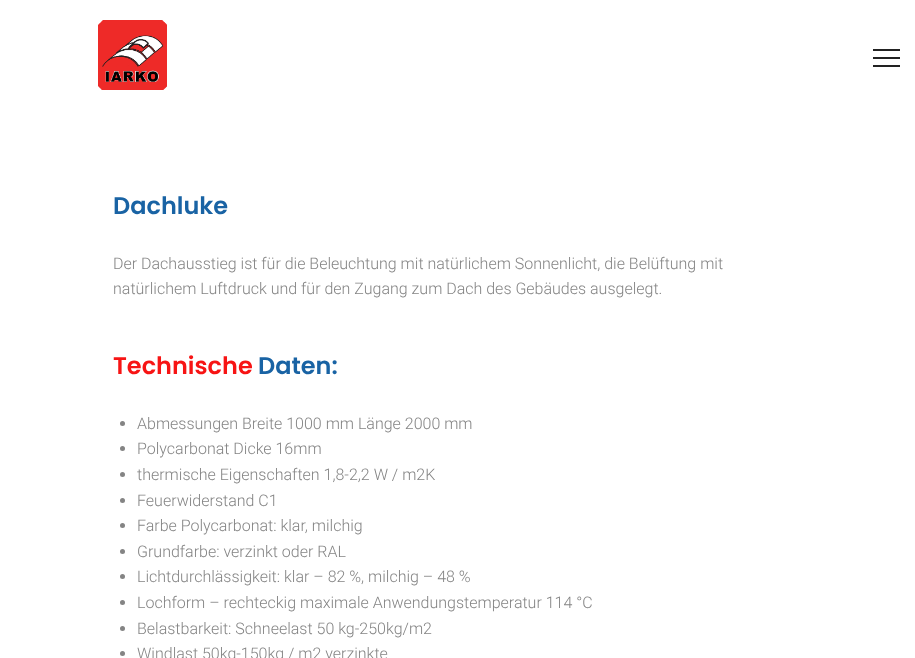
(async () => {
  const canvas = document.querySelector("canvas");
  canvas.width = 915;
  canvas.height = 658;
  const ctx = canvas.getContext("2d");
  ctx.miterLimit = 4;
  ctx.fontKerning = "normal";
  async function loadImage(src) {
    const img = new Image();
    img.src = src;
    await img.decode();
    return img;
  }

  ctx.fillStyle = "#ffffff";
  ctx.fillRect(0, 0, 915, 658);
  ctx.drawImage(await loadImage("img/1.png"), 98, 20, 69, 70);
  for (const [x, y, w, h, color] of [
    [873, 57, 27, 2, "#222222"],
    [873, 49, 27, 2, "#222222"],
    [873, 65, 27, 2, "#222222"],
  ]) {
    ctx.fillStyle = color;
    ctx.fillRect(x, y, w, h);
  }
  ctx.fillStyle = "#848484";
  ctx.beginPath();
  ctx.arc(122.5, 423.5, 2.5, 0, Math.PI * 2);
  ctx.fill();
  ctx.beginPath();
  ctx.arc(122.5, 448.5, 2.5, 0, Math.PI * 2);
  ctx.fill();
  ctx.beginPath();
  ctx.arc(122.5, 474.5, 2.5, 0, Math.PI * 2);
  ctx.fill();
  ctx.beginPath();
  ctx.arc(122.5, 500.5, 2.5, 0, Math.PI * 2);
  ctx.fill();
  ctx.beginPath();
  ctx.arc(122.5, 525.5, 2.5, 0, Math.PI * 2);
  ctx.fill();
  ctx.beginPath();
  ctx.arc(122.5, 551.5, 2.5, 0, Math.PI * 2);
  ctx.fill();
  ctx.beginPath();
  ctx.arc(122.5, 576.5, 2.5, 0, Math.PI * 2);
  ctx.fill();
  ctx.beginPath();
  ctx.arc(122.5, 602.5, 2.5, 0, Math.PI * 2);
  ctx.fill();
  ctx.beginPath();
  ctx.arc(122.5, 628.5, 2.5, 0, Math.PI * 2);
  ctx.fill();
  ctx.beginPath();
  ctx.arc(122.5, 653.5, 2.5, 0, Math.PI * 2);
  ctx.fill();
  ctx.font = "600 24px Poppins";
  ctx.fillStyle = "#1963a4";
  ctx.fillText("Dachluke", 113, 214);
  ctx.font = "300 16px Roboto";
  ctx.fillStyle = "#848484";
  ctx.fillText("Der Dachausstieg ist für die Beleuchtung mit natürlichem Sonnenlicht, die Belüftung mit", 113, 269);
  ctx.fillText("natürlichem Luftdruck und für den Zugang zum Dach des Gebäudes ausgelegt.", 113, 294);
  ctx.font = "600 24px Poppins";
  ctx.fillStyle = "#f71414";
  ctx.fillText("Technische", 113, 374);
  ctx.fillStyle = "#1963a4";
  ctx.fillText("Daten:", 258, 374);
  ctx.font = "300 16px Roboto";
  ctx.fillStyle = "#848484";
  for (const [text, x, y] of [
    ["Abmessungen Breite 1000 mm Länge 2000 mm", 137, 429],
    ["Polycarbonat Dicke 16mm", 137, 454],
    ["thermische Eigenschaften 1,8-2,2 W / m2K", 137, 480],
    ["Feuerwiderstand C1", 137, 506],
    ["Farbe Polycarbonat: klar, milchig", 137, 531],
    ["Grundfarbe: verzinkt oder RAL", 137, 557],
    ["Lichtdurchlässigkeit: klar – 82 %, milchig – 48 %", 137, 582],
    ["Lochform – rechteckig maximale Anwendungstemperatur 114 °C", 137, 608],
    ["Belastbarkeit: Schneelast 50 kg-250kg/m2", 137, 634],
    ["Windlast 50kg-150kg / m2 verzinkte", 137, 659],
  ]) {
    ctx.fillText(text, x, y);
  }
})();
